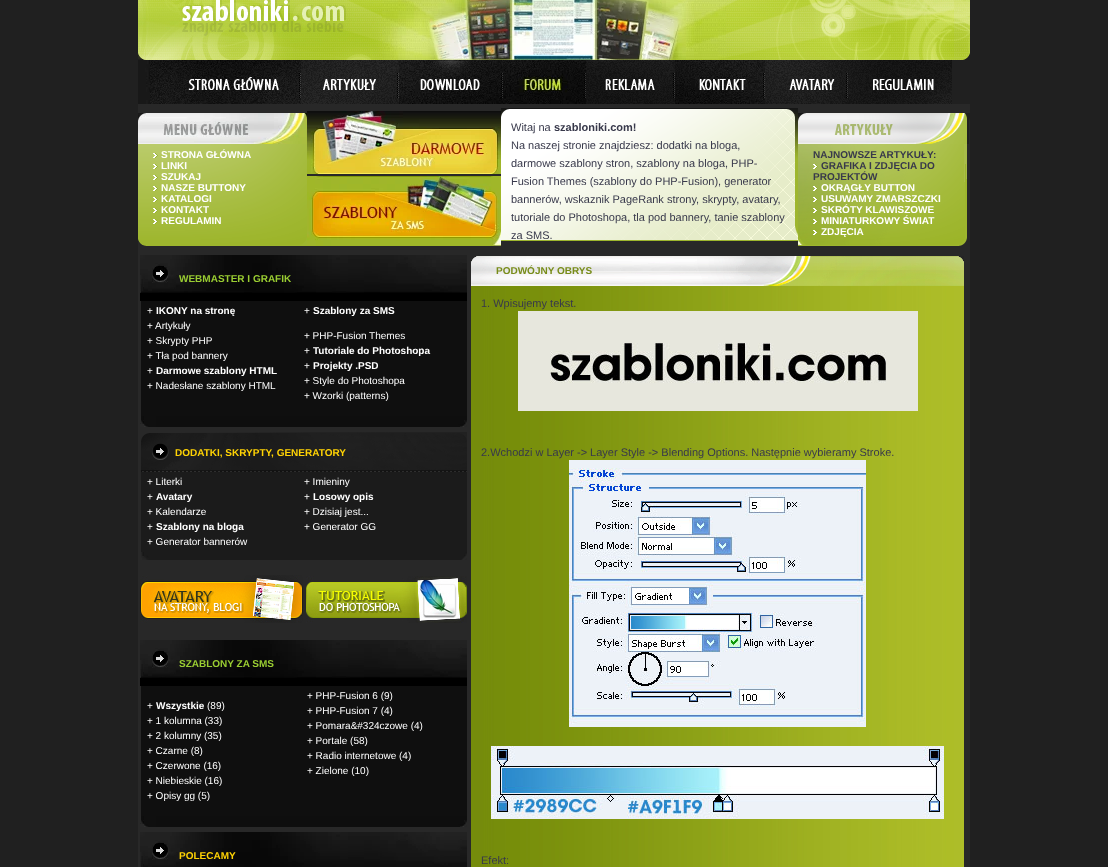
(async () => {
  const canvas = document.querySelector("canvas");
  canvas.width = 1108;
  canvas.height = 867;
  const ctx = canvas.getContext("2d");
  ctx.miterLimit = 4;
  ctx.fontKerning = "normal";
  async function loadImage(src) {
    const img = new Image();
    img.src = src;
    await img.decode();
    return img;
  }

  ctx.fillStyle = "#202020";
  ctx.fillRect(0, 0, 1108, 867);
  ctx.fillStyle = "#282828";
  ctx.fillRect(138, 104, 832, 763);
  ctx.drawImage(await loadImage("img/1.png"), 138, 0, 244, 60);
  ctx.drawImage(await loadImage("img/2.png"), 382, 0, 344, 60);
  ctx.drawImage(await loadImage("img/3.png"), 726, 0, 244, 60);
  ctx.drawImage(await loadImage("img/4.png"), 138, 60, 163, 44);
  ctx.drawImage(await loadImage("img/5.png"), 301, 60, 98, 44);
  ctx.drawImage(await loadImage("img/6.png"), 399, 60, 104, 44);
  ctx.drawImage(await loadImage("img/7.png"), 503, 60, 83, 44);
  ctx.drawImage(await loadImage("img/8.png"), 586, 60, 89, 44);
  ctx.drawImage(await loadImage("img/9.png"), 675, 60, 90, 44);
  ctx.drawImage(await loadImage("img/10.png"), 765, 60, 84, 44);
  ctx.drawImage(await loadImage("img/11.png"), 849, 60, 121, 44);
  ctx.drawImage(await loadImage("img/12.png"), 138, 113, 169, 31);
  ctx.drawImage(await loadImage("img/13.png"), 138, 144, 169, 102);
  ctx.drawImage(await loadImage("img/14.png"), 153, 153, 5, 5);
  ctx.drawImage(await loadImage("img/15.png"), 153, 164, 5, 5);
  ctx.drawImage(await loadImage("img/16.png"), 153, 175, 5, 5);
  ctx.drawImage(await loadImage("img/17.png"), 153, 186, 5, 5);
  ctx.drawImage(await loadImage("img/18.png"), 153, 197, 5, 5);
  ctx.drawImage(await loadImage("img/19.png"), 153, 208, 5, 5);
  ctx.drawImage(await loadImage("img/20.png"), 153, 219, 5, 5);
  ctx.drawImage(await loadImage("img/21.png"), 307, 111, 194, 63);
  ctx.drawImage(await loadImage("img/22.png"), 307, 176, 194, 70);
  ctx.drawImage(await loadImage("img/23.png"), 501, 108, 297, 133);
  ctx.drawImage(await loadImage("img/24.png"), 798, 113, 172, 31);
  ctx.drawImage(await loadImage("img/25.png"), 798, 144, 169, 102);
  ctx.drawImage(await loadImage("img/26.png"), 813, 164, 5, 5);
  ctx.drawImage(await loadImage("img/27.png"), 813, 186, 5, 5);
  ctx.drawImage(await loadImage("img/28.png"), 813, 197, 5, 5);
  ctx.drawImage(await loadImage("img/29.png"), 813, 208, 5, 5);
  ctx.drawImage(await loadImage("img/30.png"), 813, 219, 4, 5);
  ctx.drawImage(await loadImage("img/31.png"), 813, 230, 5, 5);
  ctx.fillStyle = "#000000";
  ctx.fillRect(140, 293, 327, 8);
  ctx.drawImage(await loadImage("img/32.png"), 140, 255, 327, 38);
  ctx.fillStyle = "#0f0f0f";
  ctx.fillRect(141, 301, 326, 115);
  ctx.drawImage(await loadImage("img/33.png"), 140, 416, 327, 11);
  ctx.drawImage(await loadImage("img/34.png"), 141, 432, 326, 40);
  ctx.fillStyle = "#1b1b1b";
  ctx.fillRect(141, 472, 326, 80);
  ctx.drawImage(await loadImage("img/35.png"), 141, 552, 326, 8);
  ctx.drawImage(await loadImage("img/36.png"), 140, 575, 163, 48);
  ctx.drawImage(await loadImage("img/37.png"), 306, 576, 161, 47);
  ctx.fillStyle = "#000000";
  ctx.fillRect(140, 678, 327, 8);
  ctx.drawImage(await loadImage("img/32.png"), 140, 640, 327, 38);
  ctx.fillStyle = "#0f0f0f";
  ctx.fillRect(141, 686, 326, 130);
  ctx.drawImage(await loadImage("img/33.png"), 140, 816, 327, 11);
  ctx.drawImage(await loadImage("img/38.png"), 140, 832, 327, 35);
  ctx.drawImage(await loadImage("img/39.png"), 471, 256, 493, 30);
  ctx.drawImage(await loadImage("img/40.png"), 471, 286, 493, 581);
  ctx.drawImage(await loadImage("img/41.png"), 518, 311, 400, 100);
  ctx.drawImage(await loadImage("img/42.png"), 569, 460, 297, 267);
  ctx.drawImage(await loadImage("img/43.png"), 491, 746, 453, 73);
  ctx.font = "bold 10px Liberation Sans";
  ctx.fillStyle = "#ffffff";
  for (const [text, x, y] of [
    ["STRONA GŁÓWNA", 161, 158],
    ["LINKI", 161, 169],
    ["SZUKAJ", 161, 180],
    ["NASZE BUTTONY", 161, 191],
    ["KATALOGI", 161, 202],
    ["KONTAKT", 161, 213],
    ["REGULAMIN", 161, 224],
  ]) {
    ctx.fillText(text, x, y);
  }
  ctx.font = "11px Liberation Sans";
  ctx.fillStyle = "#38394b";
  ctx.fillText("Witaj na", 511, 131);
  ctx.font = "bold 11px Liberation Sans";
  ctx.fillText("szabloniki.com!", 554, 131);
  ctx.font = "11px Liberation Sans";
  for (const [text, x, y] of [
    ["Na naszej stronie znajdziesz: dodatki na bloga,", 511, 149],
    ["darmowe szablony stron, szablony na bloga, PHP-", 511, 167],
    ["Fusion Themes (szablony do PHP-Fusion), generator", 511, 185],
    ["bannerów, wskaznik PageRank strony, skrypty, avatary,", 511, 203],
    ["tutoriale do Photoshopa, tla pod bannery, tanie szablony", 511, 221],
    ["za SMS.", 511, 239],
  ]) {
    ctx.fillText(text, x, y);
  }
  ctx.font = "bold 10px Liberation Sans";
  for (const [text, x, y] of [
    ["NAJNOWSZE ARTYKUŁY:", 813, 158],
    ["GRAFIKA I ZDJĘCIA DO", 821, 169],
    ["PROJEKTÓW", 813, 180],
  ]) {
    ctx.fillText(text, x, y);
  }
  ctx.fillStyle = "#ffffff";
  for (const [text, x, y] of [
    ["OKRĄGŁY BUTTON", 821, 191],
    ["USUWAMY ZMARSZCZKI", 821, 202],
    ["SKRÓTY KLAWISZOWE", 821, 213],
    ["MINIATURKOWY ŚWIAT", 821, 224],
    ["ZDJĘCIA", 821, 235],
  ]) {
    ctx.fillText(text, x, y);
  }
  ctx.fillStyle = "#9acd32";
  ctx.fillText("WEBMASTER I GRAFIK", 179, 282);
  ctx.font = "10px Liberation Sans";
  ctx.fillStyle = "#ffffff";
  ctx.fillText("+", 147, 314);
  ctx.font = "bold 10px Liberation Sans";
  ctx.fillText("IKONY na stronę", 156, 314);
  ctx.font = "10px Liberation Sans";
  for (const [text, x, y] of [
    ["+", 147, 329],
    ["Artykuły", 155, 329],
    ["+ Skrypty PHP", 147, 344],
    ["+ Tła pod bannery", 147, 359],
    ["+", 147, 374],
  ]) {
    ctx.fillText(text, x, y);
  }
  ctx.font = "bold 10px Liberation Sans";
  ctx.fillText("Darmowe szablony HTML", 156, 374);
  ctx.font = "10px Liberation Sans";
  ctx.fillText("+ Nadesłane szablony HTML", 147, 389);
  ctx.fillText("+", 304, 314);
  ctx.font = "bold 10px Liberation Sans";
  ctx.fillText("Szablony za SMS", 313, 314);
  ctx.font = "10px Liberation Sans";
  ctx.fillText("+ PHP-Fusion Themes", 304, 339);
  ctx.fillText("+", 304, 354);
  ctx.font = "bold 10px Liberation Sans";
  ctx.fillText("Tutoriale do Photoshopa", 313, 354);
  ctx.font = "10px Liberation Sans";
  ctx.fillText("+", 304, 369);
  ctx.font = "bold 10px Liberation Sans";
  ctx.fillText("Projekty .PSD", 313, 369);
  ctx.font = "10px Liberation Sans";
  ctx.fillText("+ Style do Photoshopa", 304, 384);
  ctx.fillText("+ Wzorki (patterns)", 304, 399);
  ctx.font = "bold 10px Liberation Sans";
  ctx.fillStyle = "#ffd304";
  ctx.fillText("DODATKI, SKRYPTY, GENERATORY", 175, 456);
  ctx.font = "10px Liberation Sans";
  ctx.fillStyle = "#ffffff";
  ctx.fillText("+ Literki", 147, 485);
  ctx.fillText("+", 147, 500);
  ctx.font = "bold 10px Liberation Sans";
  ctx.fillText("Avatary", 156, 500);
  ctx.font = "10px Liberation Sans";
  ctx.fillText("+ Kalendarze", 147, 515);
  ctx.fillText("+", 147, 530);
  ctx.font = "bold 10px Liberation Sans";
  ctx.fillText("Szablony na bloga", 156, 530);
  ctx.font = "10px Liberation Sans";
  for (const [text, x, y] of [
    ["+ Generator bannerów", 147, 545],
    ["+ Imieniny", 304, 485],
    ["+", 304, 500],
  ]) {
    ctx.fillText(text, x, y);
  }
  ctx.font = "bold 10px Liberation Sans";
  ctx.fillText("Losowy opis", 313, 500);
  ctx.font = "10px Liberation Sans";
  ctx.fillText("+ Dzisiaj jest...", 304, 515);
  ctx.fillText("+ Generator GG", 304, 530);
  ctx.font = "bold 10px Liberation Sans";
  ctx.fillStyle = "#9acd32";
  ctx.fillText("SZABLONY ZA SMS", 179, 667);
  ctx.font = "10px Liberation Sans";
  ctx.fillStyle = "#ffffff";
  ctx.fillText("+", 147, 709);
  ctx.font = "bold 10px Liberation Sans";
  ctx.fillText("Wszystkie", 156, 709);
  ctx.font = "10px Liberation Sans";
  for (const [text, x, y] of [
    ["(89)", 207, 709],
    ["+ 1 kolumna (33)", 147, 724],
    ["+ 2 kolumny (35)", 147, 739],
    ["+ Czarne (8)", 147, 754],
    ["+ Czerwone (16)", 147, 769],
    ["+ Niebieskie (16)", 147, 784],
    ["+ Opisy gg (5)", 147, 799],
    ["+ PHP-Fusion 6 (9)", 307, 699],
    ["+ PHP-Fusion 7 (4)", 307, 714],
    ["+ Pomara&#324czowe (4)", 307, 729],
    ["+ Portale (58)", 307, 744],
    ["+ Radio internetowe (4)", 307, 759],
    ["+ Zielone (10)", 307, 774],
  ]) {
    ctx.fillText(text, x, y);
  }
  ctx.font = "bold 10px Liberation Sans";
  ctx.fillStyle = "#ffd304";
  ctx.fillText("POLECAMY", 179, 859);
  ctx.fillStyle = "#788c19";
  ctx.fillText("PODWÓJNY OBRYS", 496, 274);
  ctx.font = "11px Liberation Sans";
  ctx.fillStyle = "#38394b";
  for (const [text, x, y] of [
    ["1. Wpisujemy tekst.", 481, 307],
    ["2.Wchodzi w Layer -> Layer Style -> Blending Options. Następnie wybieramy Stroke.", 481, 456],
    ["Efekt:", 481, 864],
  ]) {
    ctx.fillText(text, x, y);
  }
})();
